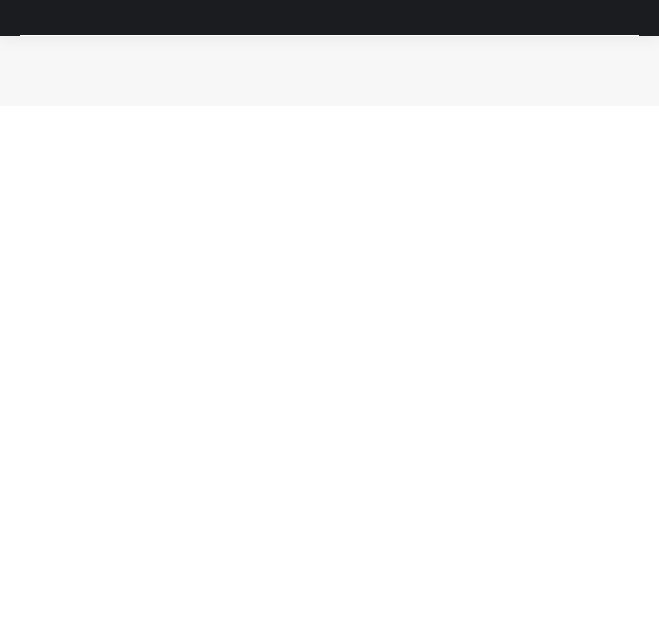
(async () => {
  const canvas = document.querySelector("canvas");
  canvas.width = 659;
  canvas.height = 621;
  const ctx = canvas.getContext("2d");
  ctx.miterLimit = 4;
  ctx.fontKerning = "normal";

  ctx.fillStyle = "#ffffff";
  ctx.fillRect(0, 0, 659, 621);
  ctx.fillStyle = "#f7f7f7";
  ctx.fillRect(0, 36, 659, 70);
  ctx.fillStyle = "rgba(0, 0, 0, 0.07)";
  ctx.filter = "blur(7.5px)";
  ctx.beginPath();
  ctx.rect(-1, -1, 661, 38);
  ctx.fill();
  ctx.filter = "none";
  ctx.fillStyle = "#1a1c20";
  ctx.fillRect(0, 0, 659, 36);
  ctx.fillStyle = "#ffffff";
  ctx.fillRect(20, 35, 619, 1);
})();
